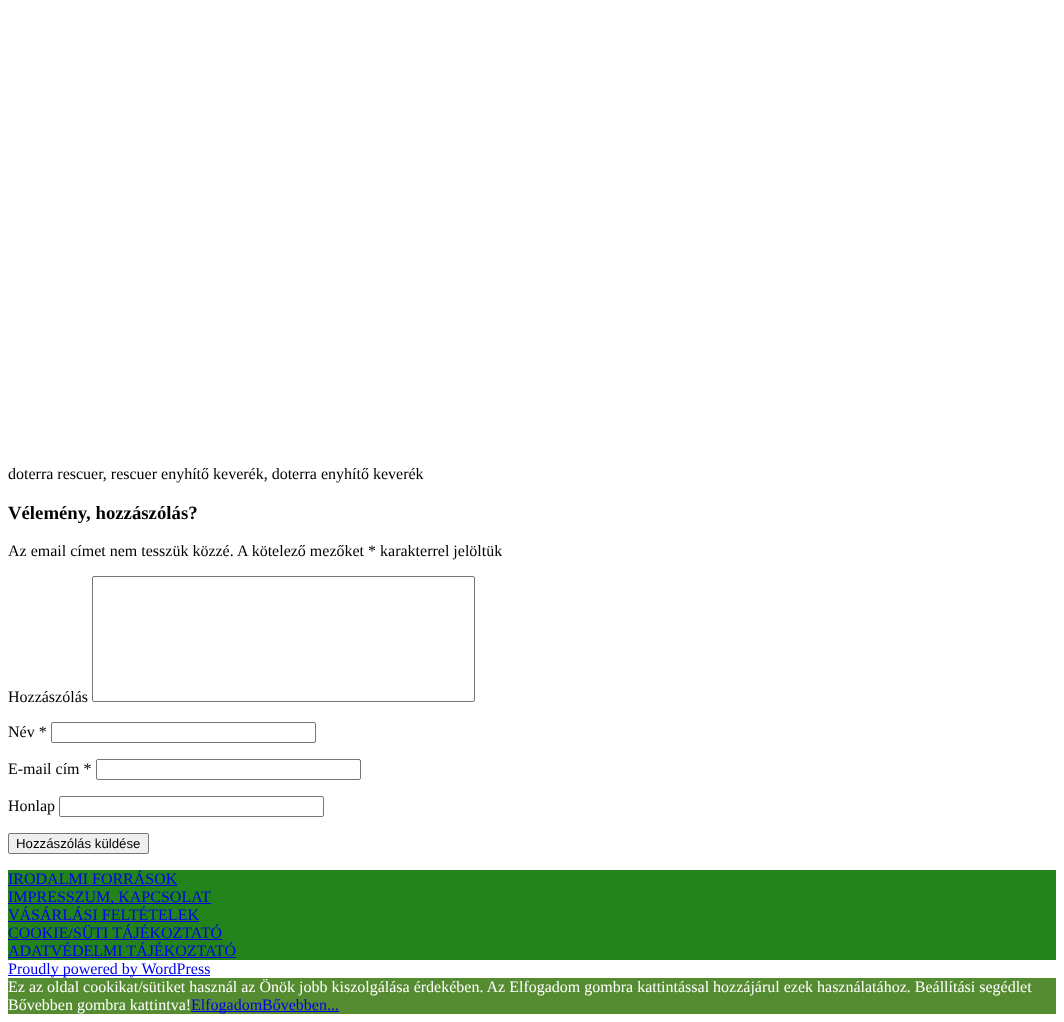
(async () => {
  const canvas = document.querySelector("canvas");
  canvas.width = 1064;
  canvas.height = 1022;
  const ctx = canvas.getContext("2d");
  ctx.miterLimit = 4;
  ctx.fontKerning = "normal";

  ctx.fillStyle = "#ffffff";
  ctx.fillRect(0, 0, 1064, 1022);
  ctx.beginPath();
  ctx.roundRect(92.5, 576.5, 382, 125, 1.5);
  ctx.strokeStyle = "#767676";
  ctx.stroke();
  ctx.beginPath();
  ctx.roundRect(51.5, 722.5, 264, 20, 1.5);
  ctx.stroke();
  ctx.beginPath();
  ctx.roundRect(96.5, 759.5, 264, 20, 1.5);
  ctx.stroke();
  ctx.beginPath();
  ctx.roundRect(59.5, 796.5, 264, 20, 1.5);
  ctx.stroke();
  ctx.fillStyle = "#efefef";
  ctx.beginPath();
  ctx.roundRect(8.5, 833.5, 140, 20, 1.5);
  ctx.fill();
  ctx.stroke();
  for (const [x, y, w, h, color] of [
    [8, 870, 1048, 90, "#21831a"],
    [8, 885, 169, 1, "#0000ee"],
    [8, 903, 203, 1, "#0000ee"],
    [8, 921, 191, 1, "#0000ee"],
    [8, 939, 214, 1, "#0000ee"],
    [8, 957, 228, 1, "#0000ee"],
    [8, 975, 202, 1, "#0000ee"],
    [8, 978, 1048, 36, "#558c31"],
    [191, 1011, 148, 1, "#0000ee"],
  ]) {
    ctx.fillStyle = color;
    ctx.fillRect(x, y, w, h);
  }
  ctx.font = "16px Liberation Serif";
  ctx.fillStyle = "#000000";
  ctx.fillText("doterra rescuer, rescuer enyhítő keverék, doterra enyhítő keverék", 8, 479);
  ctx.font = "bold 18.75px Liberation Serif";
  ctx.fillText("Vélemény, hozzászólás?", 8, 519);
  ctx.font = "16px Liberation Serif";
  for (const [text, x, y] of [
    ["Az email címet nem tesszük közzé.", 8, 556],
    ["A kötelező mezőket * karakterrel jelöltük", 237, 556],
    ["Hozzászólás", 8, 702],
    ["Név *", 8, 737],
    ["E-mail cím *", 8, 774],
    ["Honlap", 8, 811],
  ]) {
    ctx.fillText(text, x, y);
  }
  ctx.font = "13.25px Liberation Sans";
  ctx.fillText("Hozzászólás küldése", 16, 848);
  ctx.font = "16px Liberation Serif";
  ctx.fillStyle = "#0000ee";
  for (const [text, x, y] of [
    ["IRODALMI FORRÁSOK", 8, 884],
    ["IMPRESSZUM, KAPCSOLAT", 8, 902],
    ["VÁSÁRLÁSI FELTÉTELEK", 8, 920],
    ["COOKIE/SÜTI TÁJÉKOZTATÓ", 8, 938],
    ["ADATVÉDELMI TÁJÉKOZTATÓ", 8, 956],
    ["Proudly powered by WordPress", 8, 974],
  ]) {
    ctx.fillText(text, x, y);
  }
  ctx.fillStyle = "#ffffff";
  ctx.fillText("Ez az oldal cookikat/sütiket használ az Önök jobb kiszolgálása érdekében. Az Elfogadom gombra kattintással hozzájárul ezek használatához. Beállítási segédlet", 8, 992);
  ctx.fillText("Bővebben gombra kattintva!", 8, 1010);
  ctx.fillStyle = "#0000ee";
  ctx.fillText("ElfogadomBővebben...", 191, 1010);
})();
